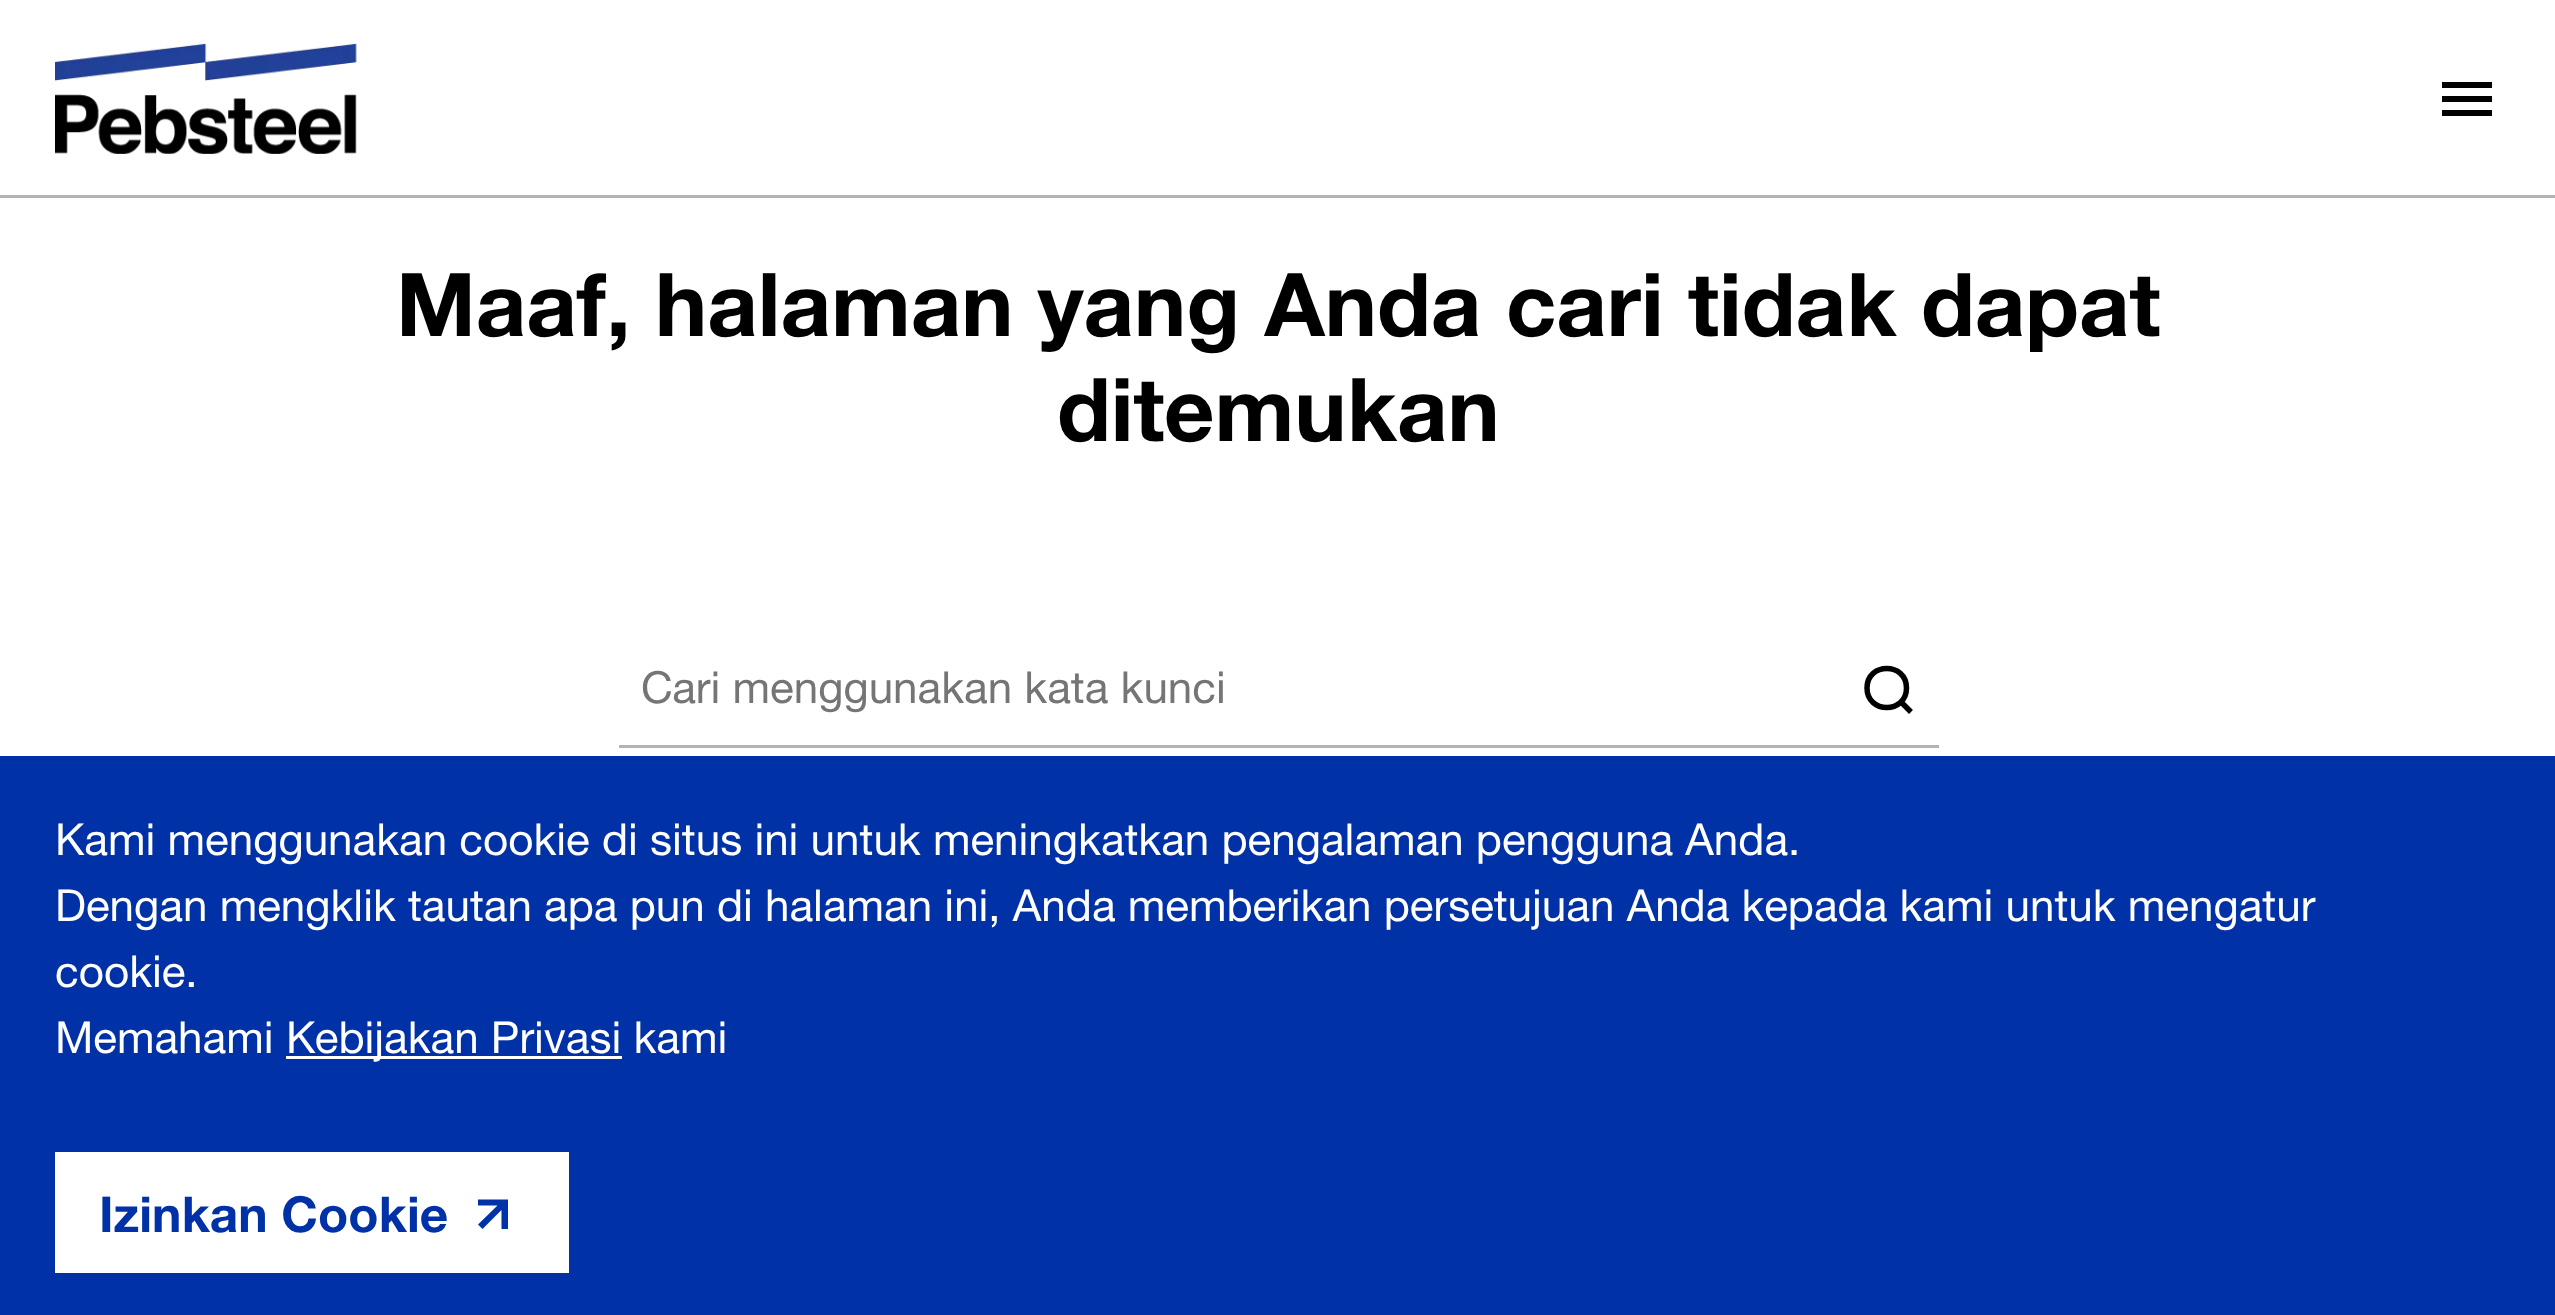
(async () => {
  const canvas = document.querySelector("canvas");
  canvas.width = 2555;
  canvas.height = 1315;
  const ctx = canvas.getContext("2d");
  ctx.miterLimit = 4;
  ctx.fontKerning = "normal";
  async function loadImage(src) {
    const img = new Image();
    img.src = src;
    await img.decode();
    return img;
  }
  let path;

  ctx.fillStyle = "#ffffff";
  ctx.fillRect(0, 0, 2555, 1315);
  ctx.fillStyle = "#b3b3b3";
  ctx.fillRect(0, 195, 2555, 3);
  ctx.drawImage(await loadImage("img/1.png"), 55, 43, 302, 111);
  ctx.fillStyle = "#000000";
  path = new Path2D("M2492 116H2442V110H2492ZM2492 102H2442V96H2492ZM2492 88H2442V82H2492Z");
  ctx.fill(path);
  ctx.fillStyle = "#b3b3b3";
  ctx.fillRect(619, 745, 1320, 3);
  path = new Path2D("M1911 712L1901 702ZM1906.5 688C1906.5 714 1867 714 1867 688C1867 662 1906.5 662 1906.5 688Z");
  ctx.strokeStyle = "#000000";
  ctx.lineWidth = 5.5;
  ctx.lineCap = "round";
  ctx.stroke(path);
  for (const [x, y, w, h, color] of [
    [0, 756, 2555, 559, "#0031a7"],
    [286, 1056, 336, 3, "#ffffff"],
    [55, 1152, 514, 121, "#ffffff"],
  ]) {
    ctx.fillStyle = color;
    ctx.fillRect(x, y, w, h);
  }
  ctx.fillStyle = "#0032a7";
  path = new Path2D("M482.5 1229L501.5 1210V1229H508V1199.5H478V1205.5H497.5L478 1224.5Z");
  ctx.fill(path);
  ctx.font = "bold 88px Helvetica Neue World";
  ctx.fillStyle = "#000000";
  ctx.fillText("Maaf, halaman yang Anda cari tidak dapat", 396, 336);
  ctx.fillText("ditemukan", 1057, 441);
  ctx.font = "44px Helvetica Neue World";
  ctx.fillStyle = "#757575";
  ctx.fillText("Cari menggunakan kata kunci", 641, 703);
  ctx.fillStyle = "#ffffff";
  for (const [text, x, y] of [
    ["Kami menggunakan cookie di situs ini untuk meningkatkan pengalaman pengguna Anda.", 55, 855],
    ["Dengan mengklik tautan apa pun di halaman ini, Anda memberikan persetujuan Anda kepada kami untuk mengatur", 55, 921],
    ["cookie.", 55, 987],
    ["Memahami", 55, 1053],
    ["Kebijakan Privasi kami", 286, 1053],
  ]) {
    ctx.fillText(text, x, y);
  }
  ctx.font = "bold 49.5px Helvetica Neue World";
  ctx.fillStyle = "#0031a7";
  ctx.fillText("Izinkan Cookie", 99, 1232);
})();
